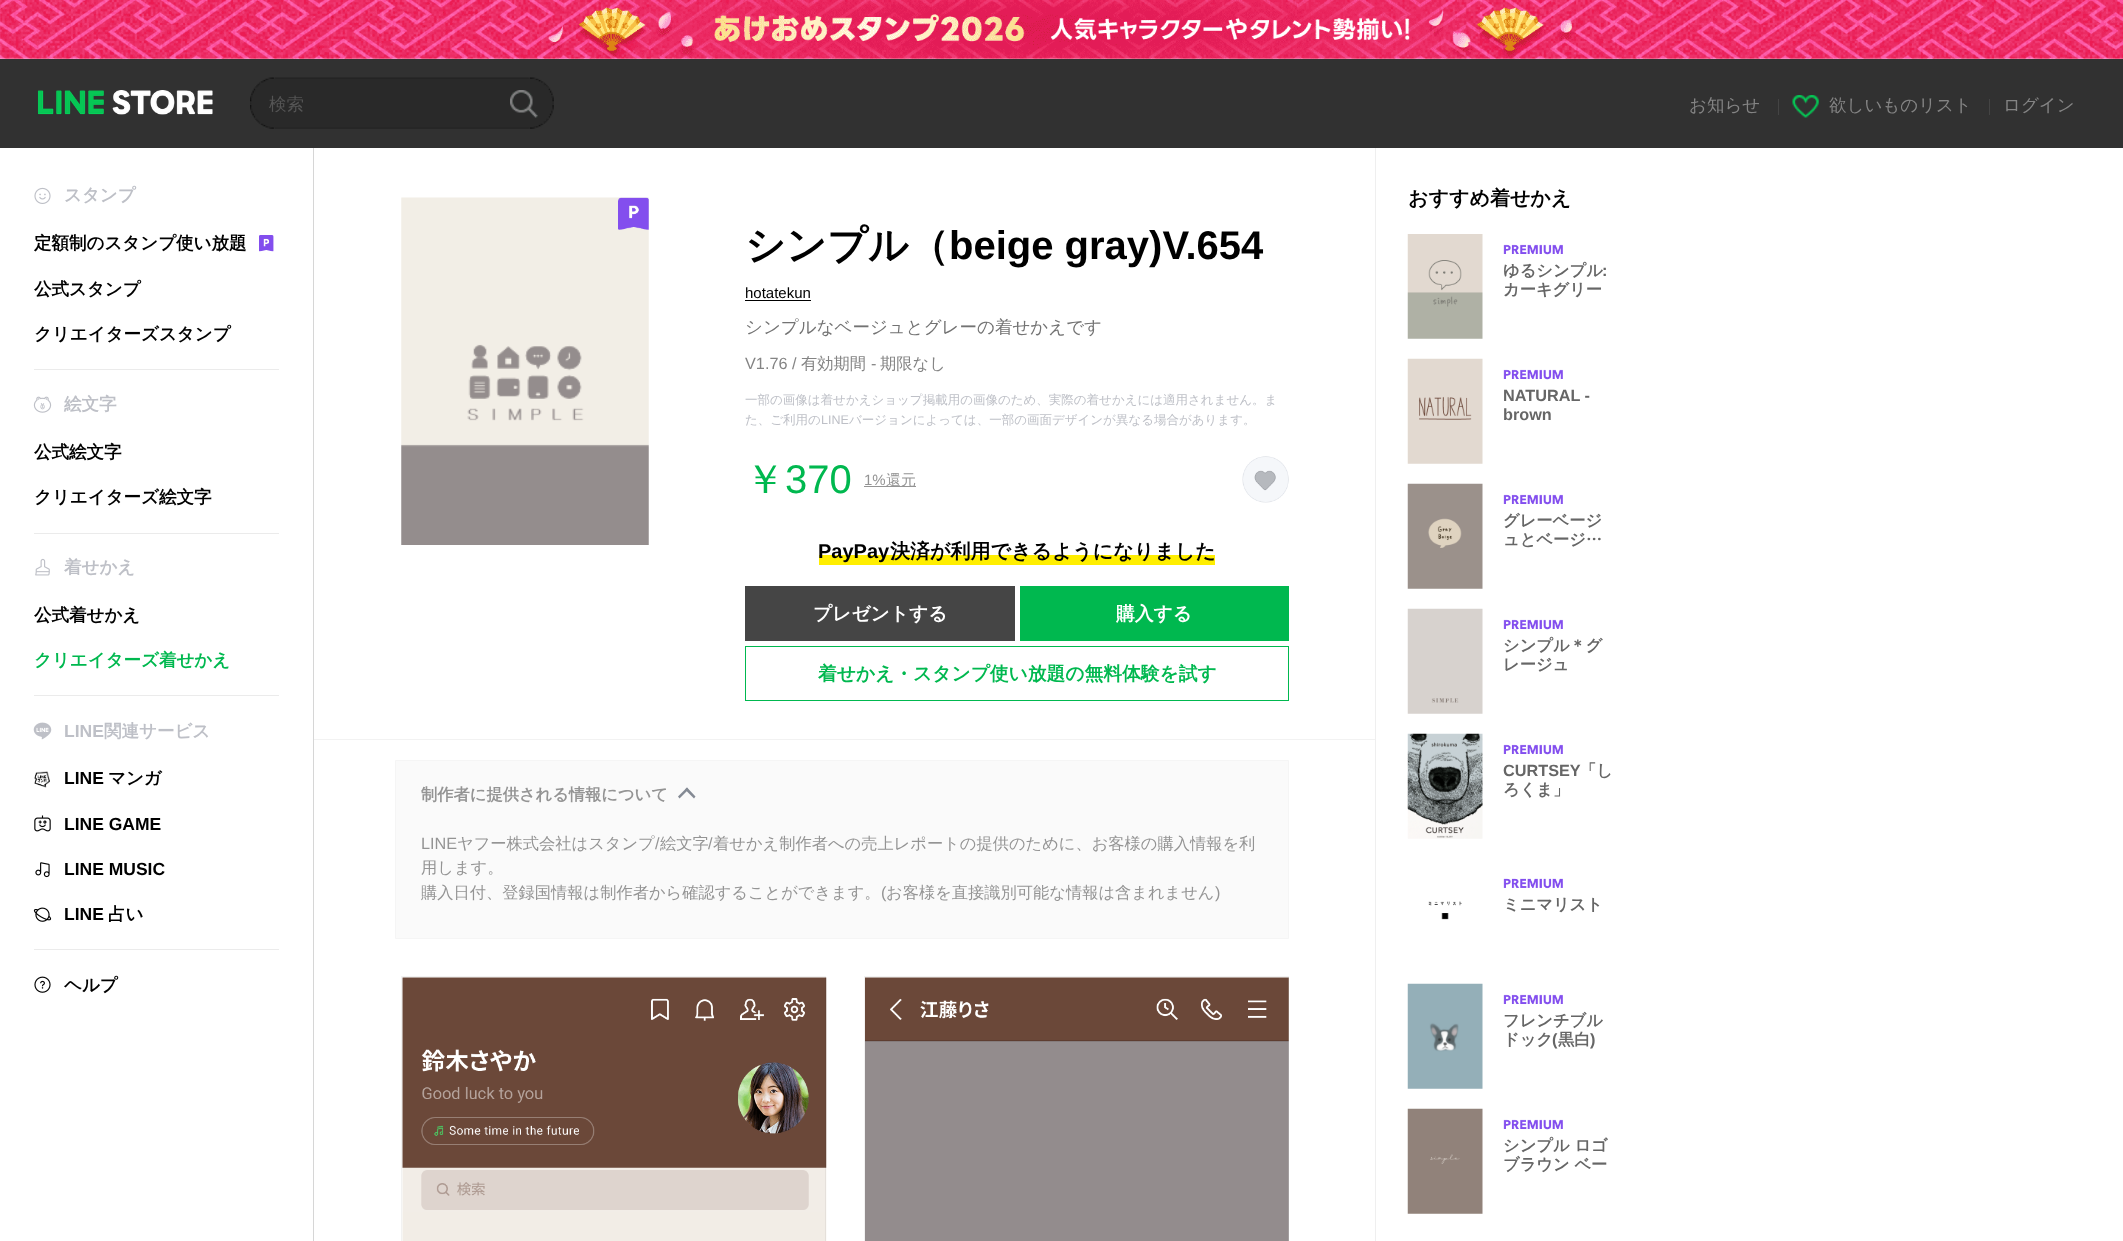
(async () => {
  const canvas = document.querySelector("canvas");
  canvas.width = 2123;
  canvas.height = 1241;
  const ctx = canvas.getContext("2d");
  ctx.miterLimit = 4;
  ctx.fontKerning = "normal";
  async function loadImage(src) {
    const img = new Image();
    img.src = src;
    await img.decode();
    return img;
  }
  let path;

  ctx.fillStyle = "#ffffff";
  ctx.fillRect(0, 0, 2123, 1241);
  ctx.drawImage(await loadImage("img/1.png"), 0, 0, 2123, 59);
  ctx.fillStyle = "#313131";
  ctx.fillRect(0, 59, 2123, 89);
  ctx.drawImage(await loadImage("img/2.png"), 37, 90, 176, 25);
  ctx.drawImage(await loadImage("img/3.png"), 250, 77, 304, 52);
  ctx.drawImage(await loadImage("img/4.png"), 510, 90, 28, 28);
  ctx.fillStyle = "#444444";
  ctx.fillRect(1778, 99, 1, 16);
  ctx.drawImage(await loadImage("img/5.png"), 1792, 95, 27, 23);
  ctx.fillRect(1989, 99, 1, 16);
  ctx.drawImage(await loadImage("img/6.png"), 34, 187, 17, 17);
  ctx.drawImage(await loadImage("img/7.png"), 259, 235, 15, 17);
  ctx.fillStyle = "#ebebeb";
  ctx.fillRect(34, 369, 245, 1);
  ctx.drawImage(await loadImage("img/8.png"), 33, 396, 19, 17);
  ctx.fillRect(34, 533, 245, 1);
  ctx.drawImage(await loadImage("img/9.png"), 35, 558, 15, 18);
  ctx.fillRect(34, 695, 245, 1);
  ctx.drawImage(await loadImage("img/10.png"), 33, 722, 19, 18);
  ctx.drawImage(await loadImage("img/11.png"), 34, 771, 16, 17);
  ctx.drawImage(await loadImage("img/12.png"), 34, 815, 17, 17);
  ctx.drawImage(await loadImage("img/13.png"), 35, 862, 15, 16);
  ctx.drawImage(await loadImage("img/14.png"), 33, 907, 19, 15);
  ctx.fillRect(34, 949, 245, 1);
  ctx.drawImage(await loadImage("img/15.png"), 34, 976, 17, 17);
  ctx.fillStyle = "#d6d6d6";
  ctx.fillRect(313, 148, 1, 1093);
  ctx.drawImage(await loadImage("img/16.png"), 401, 197, 248, 348);
  ctx.drawImage(await loadImage("img/17.png"), 618, 197, 31, 33);
  ctx.fillStyle = "#000000";
  ctx.fillRect(745, 300, 66, 1);
  ctx.fillStyle = "#949494";
  ctx.fillRect(864, 486, 52, 1);
  ctx.drawImage(await loadImage("img/18.png"), 1242, 456, 47, 47);
  for (const [x, y, w, h, color] of [
    [819, 555, 396, 10, "#ffee00"],
    [745, 586, 270, 55, "#454545"],
    [1020, 586, 269, 55, "#00b84f"],
  ]) {
    ctx.fillStyle = color;
    ctx.fillRect(x, y, w, h);
  }
  ctx.strokeStyle = "#00b84f";
  ctx.strokeRect(745.5, 646.5, 543, 54);
  ctx.fillStyle = "#f2f2f2";
  ctx.fillRect(314, 739, 1062, 1);
  ctx.fillStyle = "#efefef";
  ctx.fillRect(1375, 148, 1, 1093);
  ctx.fillStyle = "#fafafa";
  ctx.beginPath();
  ctx.rect(395.5, 760.5, 893, 178);
  ctx.fill();
  ctx.strokeStyle = "#f5f5f5";
  ctx.stroke();
  ctx.fillStyle = "#848a94";
  path = new Path2D("M678 796.5L687 787.5L688.5 789.5L679.5 798.5Z");
  ctx.fill(path);
  path = new Path2D("M685 789.5L687 787.5L695.5 796.5L694 798.5Z");
  ctx.fill(path);
  ctx.drawImage(await loadImage("img/19.png"), 402, 977, 425, 264);
  ctx.strokeStyle = "rgba(0, 0, 0, 0.05)";
  ctx.strokeRect(401.5, 976.5, 424, 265);
  ctx.drawImage(await loadImage("img/20.png"), 865, 977, 424, 264);
  ctx.strokeRect(864.5, 976.5, 424, 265);
  ctx.drawImage(await loadImage("img/21.png"), 1407, 234, 76, 105);
  ctx.drawImage(await loadImage("img/22.png"), 1503, 244, 60, 11);
  ctx.drawImage(await loadImage("img/23.png"), 1407, 358, 76, 106);
  ctx.drawImage(await loadImage("img/22.png"), 1503, 369, 60, 11);
  ctx.drawImage(await loadImage("img/24.png"), 1407, 483, 76, 106);
  ctx.drawImage(await loadImage("img/22.png"), 1503, 494, 60, 11);
  ctx.drawImage(await loadImage("img/25.png"), 1407, 608, 76, 106);
  ctx.drawImage(await loadImage("img/22.png"), 1503, 619, 60, 11);
  ctx.drawImage(await loadImage("img/26.png"), 1407, 733, 76, 106);
  ctx.drawImage(await loadImage("img/22.png"), 1503, 744, 60, 11);
  ctx.drawImage(await loadImage("img/27.png"), 1428, 901, 34, 19);
  ctx.drawImage(await loadImage("img/28.png"), 1503, 878, 60, 11);
  ctx.drawImage(await loadImage("img/29.png"), 1407, 983, 76, 106);
  ctx.drawImage(await loadImage("img/22.png"), 1503, 994, 60, 11);
  ctx.drawImage(await loadImage("img/30.png"), 1407, 1108, 76, 106);
  ctx.drawImage(await loadImage("img/22.png"), 1503, 1119, 60, 11);
  ctx.font = "500 17.5px WenQuanYi Zen Hei";
  ctx.fillStyle = "#545454";
  ctx.fillText("検索", 269, 110);
  ctx.fillStyle = "#848484";
  for (const [text, x, y] of [
    ["お知らせ", 1689, 111],
    ["欲しいものリスト", 1829, 111],
    ["ログイン", 2003, 111],
  ]) {
    ctx.fillText(text, x, y);
  }
  ctx.font = "bold 17.5px WenQuanYi Zen Hei";
  ctx.fillStyle = "#bec0c7";
  ctx.fillText("スタンプ", 64, 201);
  ctx.fillStyle = "#000000";
  for (const [text, x, y] of [
    ["定額制のスタンプ使い放題", 34, 249],
    ["公式スタンプ", 34, 295],
    ["クリエイターズスタンプ", 34, 340],
  ]) {
    ctx.fillText(text, x, y);
  }
  ctx.fillStyle = "#bec0c7";
  ctx.fillText("絵文字", 64, 410);
  ctx.fillStyle = "#000000";
  ctx.fillText("公式絵文字", 34, 458);
  ctx.fillText("クリエイターズ絵文字", 34, 503);
  ctx.fillStyle = "#bec0c7";
  ctx.fillText("着せかえ", 64, 573);
  ctx.fillStyle = "#000000";
  ctx.fillText("公式着せかえ", 34, 621);
  ctx.fillStyle = "#00b84f";
  ctx.fillText("クリエイターズ着せかえ", 34, 666);
  ctx.font = "bold 17.5px Liberation Sans";
  ctx.fillStyle = "#bec0c7";
  ctx.fillText("LINE", 64, 737);
  ctx.font = "bold 17.5px WenQuanYi Zen Hei";
  ctx.fillText("関連サービス", 104, 737);
  ctx.font = "bold 17.5px Liberation Sans";
  ctx.fillStyle = "#000000";
  ctx.fillText("LINE", 64, 784);
  ctx.font = "bold 17.5px WenQuanYi Zen Hei";
  ctx.fillText("マンガ", 108, 784);
  ctx.font = "bold 17.5px Liberation Sans";
  for (const [text, x, y] of [
    ["LINE GAME", 64, 830],
    ["LINE MUSIC", 64, 875],
    ["LINE", 64, 920],
  ]) {
    ctx.fillText(text, x, y);
  }
  ctx.font = "bold 17.5px WenQuanYi Zen Hei";
  ctx.fillText("占い", 108, 920);
  ctx.fillText("ヘルプ", 64, 991);
  ctx.font = "bold 40px WenQuanYi Zen Hei";
  ctx.fillText("シンプル（", 745, 259);
  ctx.font = "bold 40px Liberation Sans";
  ctx.fillText("beige gray)V.654", 949, 259);
  ctx.font = "15px Liberation Sans";
  ctx.fillText("hotatekun", 745, 298);
  ctx.font = "500 17.5px WenQuanYi Zen Hei";
  ctx.fillStyle = "#737373";
  ctx.fillText("シンプルなベージュとグレーの着せかえです", 745, 333);
  ctx.font = "16.25px Liberation Sans";
  ctx.fillStyle = "#848484";
  ctx.fillText("V1.76 /", 745, 369);
  ctx.font = "500 16.25px WenQuanYi Zen Hei";
  ctx.fillText("有効期間", 801, 369);
  ctx.font = "16.25px Liberation Sans";
  ctx.fillText("-", 871, 369);
  ctx.font = "500 16.25px WenQuanYi Zen Hei";
  ctx.fillText("期限なし", 880, 369);
  ctx.font = "500 12.5px WenQuanYi Zen Hei";
  ctx.fillStyle = "#bec0c7";
  ctx.fillText("一部の画像は着せかえショップ掲載用の画像のため、実際の着せかえには適用されません。ま", 745, 404);
  ctx.fillText("た、ご利用の", 745, 424);
  ctx.font = "12.5px Liberation Sans";
  ctx.fillText("LINE", 821, 424);
  ctx.font = "500 12.5px WenQuanYi Zen Hei";
  ctx.fillText("バージョンによっては、一部の画面デザインが異なる場合があります。", 849, 424);
  ctx.font = "500 40px WenQuanYi Zen Hei";
  ctx.fillStyle = "#00b84f";
  ctx.fillText("￥", 745, 493);
  ctx.font = "40px Liberation Sans";
  ctx.fillText("370", 785, 493);
  ctx.font = "15px Liberation Sans";
  ctx.fillStyle = "#949494";
  ctx.fillText("1%", 864, 485);
  ctx.font = "500 15px WenQuanYi Zen Hei";
  ctx.fillText("還元", 886, 485);
  ctx.font = "bold 20px Liberation Sans";
  ctx.fillStyle = "#000000";
  ctx.fillText("PayPay", 818, 558);
  ctx.font = "bold 20px WenQuanYi Zen Hei";
  ctx.fillText("決済が利用できるようになりました", 890, 558);
  ctx.font = "bold 18.75px WenQuanYi Zen Hei";
  ctx.fillStyle = "#ffffff";
  ctx.fillText("プレゼントする", 813, 620);
  ctx.fillText("購入する", 1116, 620);
  ctx.fillStyle = "#00b84f";
  ctx.fillText("着せかえ・スタンプ使い放題の無料体験を試す", 818, 680);
  ctx.font = "bold 16.25px WenQuanYi Zen Hei";
  ctx.fillStyle = "#949494";
  ctx.fillText("制作者に提供される情報について", 421, 800);
  ctx.font = "16.25px Liberation Sans";
  ctx.fillText("LINE", 421, 849);
  ctx.font = "500 16.25px WenQuanYi Zen Hei";
  ctx.fillText("ヤフー株式会社はスタンプ", 457, 849);
  ctx.font = "16.25px Liberation Sans";
  ctx.fillText("/", 655, 849);
  ctx.font = "500 16.25px WenQuanYi Zen Hei";
  ctx.fillText("絵文字", 660, 849);
  ctx.font = "16.25px Liberation Sans";
  ctx.fillText("/", 708, 849);
  ctx.font = "500 16.25px WenQuanYi Zen Hei";
  for (const [text, x, y] of [
    ["着せかえ制作者への売上レポートの提供のために、お客様の購入情報を利", 713, 849],
    ["用します。", 421, 873],
    ["購入日付、登録国情報は制作者から確認することができます。", 421, 898],
  ]) {
    ctx.fillText(text, x, y);
  }
  ctx.font = "16.25px Liberation Sans";
  ctx.fillText("(", 881, 898);
  ctx.font = "500 16.25px WenQuanYi Zen Hei";
  ctx.fillText("お客様を直接識別可能な情報は含まれません", 886, 898);
  ctx.font = "16.25px Liberation Sans";
  ctx.fillText(")", 1215, 898);
  ctx.font = "bold 20px WenQuanYi Zen Hei";
  ctx.fillStyle = "#000000";
  ctx.fillText("おすすめ着せかえ", 1408, 205);
  ctx.font = "bold 16.25px WenQuanYi Zen Hei";
  ctx.fillStyle = "#666666";
  ctx.fillText("ゆるシンプル", 1503, 276);
  ctx.font = "bold 16.25px Liberation Sans";
  ctx.fillText(":", 1602, 276);
  ctx.font = "bold 16.25px WenQuanYi Zen Hei";
  ctx.fillText("カーキグリー", 1503, 295);
  ctx.font = "bold 16.25px Liberation Sans";
  ctx.fillText("NATURAL -", 1503, 401);
  ctx.fillText("brown", 1503, 420);
  ctx.font = "bold 16.25px WenQuanYi Zen Hei";
  for (const [text, x, y] of [
    ["グレーベージ", 1503, 526],
    ["ュとベージ…", 1503, 545],
    ["シンプル＊グ", 1503, 651],
    ["レージュ", 1503, 670],
  ]) {
    ctx.fillText(text, x, y);
  }
  ctx.font = "bold 16.25px Liberation Sans";
  ctx.fillText("CURTSEY", 1503, 776);
  ctx.font = "bold 16.25px WenQuanYi Zen Hei";
  for (const [text, x, y] of [
    ["「し", 1580, 776],
    ["ろくま」", 1503, 795],
    ["ミニマリスト", 1503, 910],
    ["フレンチブル", 1503, 1026],
    ["ドック", 1503, 1045],
  ]) {
    ctx.fillText(text, x, y);
  }
  ctx.font = "bold 16.25px Liberation Sans";
  ctx.fillText("(", 1552, 1045);
  ctx.font = "bold 16.25px WenQuanYi Zen Hei";
  ctx.fillText("黒白", 1558, 1045);
  ctx.font = "bold 16.25px Liberation Sans";
  ctx.fillText(")", 1590, 1045);
  ctx.font = "bold 16.25px WenQuanYi Zen Hei";
  ctx.fillText("シンプル ロゴ", 1503, 1151);
  ctx.fillText("ブラウン ベー", 1503, 1170);
})();
